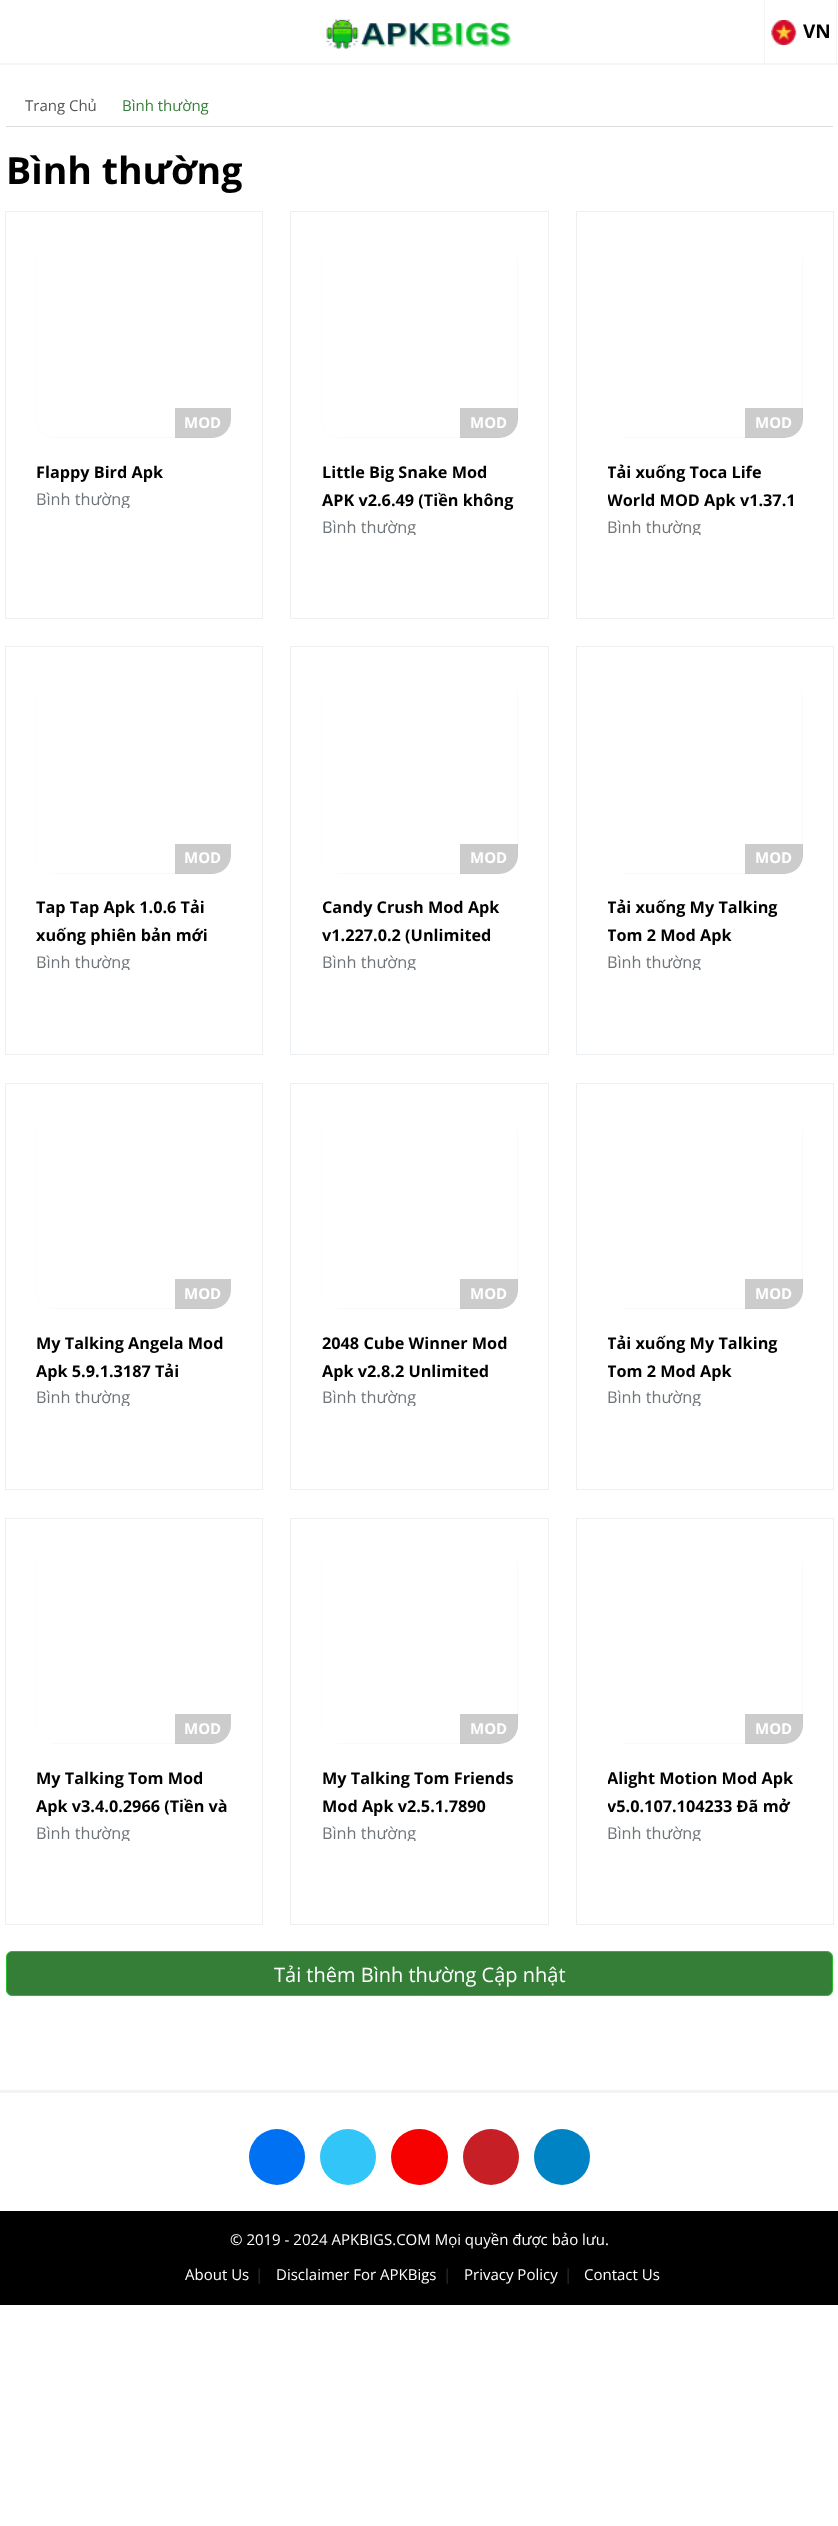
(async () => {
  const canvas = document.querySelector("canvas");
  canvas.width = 838;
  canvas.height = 2526;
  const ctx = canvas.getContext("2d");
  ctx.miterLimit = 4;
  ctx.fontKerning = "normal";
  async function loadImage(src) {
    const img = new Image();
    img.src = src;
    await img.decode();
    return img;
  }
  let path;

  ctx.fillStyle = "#ffffff";
  ctx.fillRect(0, 0, 838, 2526);
  ctx.fillStyle = "#f5f5f5";
  path = new Path2D("M0 62V65H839V3V62Z");
  ctx.fill(path);
  ctx.fillStyle = "#ffffff";
  ctx.fillRect(0, 62, 838, 1);
  ctx.drawImage(await loadImage("img/1.png"), 326, 18, 186, 31);
  ctx.fillStyle = "#f5f5f5";
  ctx.fillRect(836, 0, 1, 63);
  ctx.fillRect(764, 0, 1, 63);
  ctx.drawImage(await loadImage("img/2.png"), 771, 20, 26, 25);
  ctx.fillStyle = "#dddddd";
  ctx.fillRect(6, 126, 827, 1);
  ctx.strokeStyle = "#edf0f2";
  ctx.strokeRect(5.5, 211.5, 257, 407);
  ctx.fillStyle = "#f8f9fa";
  ctx.beginPath();
  ctx.roundRect(36, 243, 195, 195, 19);
  ctx.fill();
  ctx.drawImage(await loadImage("img/3.png"), 36, 243, 195, 194);
  ctx.fillStyle = "rgba(0, 0, 0, 0.2)";
  ctx.beginPath();
  ctx.roundRect(175, 408, 56, 30, [0, 0, 19, 0]);
  ctx.fill();
  ctx.strokeRect(290.5, 211.5, 258, 407);
  ctx.fillStyle = "#f8f9fa";
  ctx.beginPath();
  ctx.roundRect(321, 243, 197, 195, 19);
  ctx.fill();
  ctx.drawImage(await loadImage("img/4.png"), 321, 243, 196, 194);
  ctx.fillStyle = "rgba(0, 0, 0, 0.2)";
  ctx.beginPath();
  ctx.roundRect(460, 408, 58, 30, [0, 0, 19, 0]);
  ctx.fill();
  ctx.strokeRect(576.5, 211.5, 257, 407);
  ctx.fillStyle = "#f8f9fa";
  ctx.beginPath();
  ctx.roundRect(608, 243, 195, 195, 19);
  ctx.fill();
  ctx.drawImage(await loadImage("img/5.png"), 608, 243, 194, 194);
  ctx.fillStyle = "rgba(0, 0, 0, 0.2)";
  ctx.beginPath();
  ctx.roundRect(745, 408, 58, 30, [0, 0, 19, 0]);
  ctx.fill();
  ctx.strokeRect(5.5, 646.5, 257, 408);
  ctx.fillStyle = "#f8f9fa";
  ctx.beginPath();
  ctx.roundRect(36, 678, 195, 196, 19);
  ctx.fill();
  ctx.drawImage(await loadImage("img/6.png"), 36, 678, 195, 195);
  ctx.fillStyle = "rgba(0, 0, 0, 0.2)";
  ctx.beginPath();
  ctx.roundRect(175, 844, 56, 30, [0, 0, 19, 0]);
  ctx.fill();
  ctx.strokeRect(290.5, 646.5, 258, 408);
  ctx.fillStyle = "#f8f9fa";
  ctx.beginPath();
  ctx.roundRect(321, 678, 197, 196, 19);
  ctx.fill();
  ctx.drawImage(await loadImage("img/7.png"), 321, 678, 196, 195);
  ctx.fillStyle = "rgba(0, 0, 0, 0.2)";
  ctx.beginPath();
  ctx.roundRect(460, 844, 58, 30, [0, 0, 19, 0]);
  ctx.fill();
  ctx.strokeRect(576.5, 646.5, 257, 408);
  ctx.fillStyle = "#f8f9fa";
  ctx.beginPath();
  ctx.roundRect(608, 678, 195, 196, 19);
  ctx.fill();
  ctx.drawImage(await loadImage("img/8.png"), 608, 678, 194, 195);
  ctx.fillStyle = "rgba(0, 0, 0, 0.2)";
  ctx.beginPath();
  ctx.roundRect(745, 844, 58, 30, [0, 0, 19, 0]);
  ctx.fill();
  ctx.strokeRect(5.5, 1083.5, 257, 406);
  ctx.fillStyle = "#f8f9fa";
  ctx.beginPath();
  ctx.roundRect(36, 1114, 195, 195, 19);
  ctx.fill();
  ctx.drawImage(await loadImage("img/9.png"), 36, 1114, 195, 194);
  ctx.fillStyle = "rgba(0, 0, 0, 0.2)";
  ctx.beginPath();
  ctx.roundRect(175, 1279, 56, 30, [0, 0, 19, 0]);
  ctx.fill();
  ctx.strokeRect(290.5, 1083.5, 258, 406);
  ctx.fillStyle = "#f8f9fa";
  ctx.beginPath();
  ctx.roundRect(321, 1114, 197, 195, 19);
  ctx.fill();
  ctx.drawImage(await loadImage("img/10.png"), 321, 1114, 196, 194);
  ctx.fillStyle = "rgba(0, 0, 0, 0.2)";
  ctx.beginPath();
  ctx.roundRect(460, 1279, 58, 30, [0, 0, 19, 0]);
  ctx.fill();
  ctx.strokeRect(576.5, 1083.5, 257, 406);
  ctx.fillStyle = "#f8f9fa";
  ctx.beginPath();
  ctx.roundRect(608, 1114, 195, 195, 19);
  ctx.fill();
  ctx.drawImage(await loadImage("img/11.png"), 608, 1114, 194, 194);
  ctx.fillStyle = "rgba(0, 0, 0, 0.2)";
  ctx.beginPath();
  ctx.roundRect(745, 1279, 58, 30, [0, 0, 19, 0]);
  ctx.fill();
  ctx.strokeRect(5.5, 1518.5, 257, 406);
  ctx.fillStyle = "#f8f9fa";
  ctx.beginPath();
  ctx.roundRect(36, 1549, 195, 195, 19);
  ctx.fill();
  ctx.drawImage(await loadImage("img/12.png"), 36, 1549, 195, 194);
  ctx.fillStyle = "rgba(0, 0, 0, 0.2)";
  ctx.beginPath();
  ctx.roundRect(175, 1714, 56, 30, [0, 0, 19, 0]);
  ctx.fill();
  ctx.strokeRect(290.5, 1518.5, 258, 406);
  ctx.fillStyle = "#f8f9fa";
  ctx.beginPath();
  ctx.roundRect(321, 1549, 197, 195, 19);
  ctx.fill();
  ctx.drawImage(await loadImage("img/10.png"), 321, 1549, 196, 194);
  ctx.fillStyle = "rgba(0, 0, 0, 0.2)";
  ctx.beginPath();
  ctx.roundRect(460, 1714, 58, 30, [0, 0, 19, 0]);
  ctx.fill();
  ctx.strokeRect(576.5, 1518.5, 257, 406);
  ctx.fillStyle = "#f8f9fa";
  ctx.beginPath();
  ctx.roundRect(608, 1549, 195, 195, 19);
  ctx.fill();
  ctx.drawImage(await loadImage("img/11.png"), 608, 1549, 194, 194);
  ctx.fillStyle = "rgba(0, 0, 0, 0.2)";
  ctx.beginPath();
  ctx.roundRect(745, 1714, 58, 30, [0, 0, 19, 0]);
  ctx.fill();
  ctx.fillStyle = "#357e38";
  ctx.beginPath();
  ctx.roundRect(6.5, 1951.5, 826, 44, 5.5);
  ctx.fill();
  ctx.strokeStyle = "#29bb2e";
  ctx.stroke();
  ctx.fillStyle = "#f3f3f3";
  ctx.fillRect(0, 2090, 838, 3);
  ctx.fillStyle = "#0071f3";
  ctx.beginPath();
  ctx.arc(277, 2157, 28, 0, Math.PI * 2);
  ctx.fill();
  ctx.fillStyle = "#31c6f7";
  ctx.beginPath();
  ctx.arc(348, 2157, 28, 0, Math.PI * 2);
  ctx.fill();
  ctx.fillStyle = "#f70000";
  ctx.beginPath();
  ctx.roundRect(391, 2129, 57, 56, 28);
  ctx.fill();
  ctx.fillStyle = "#c62026";
  ctx.beginPath();
  ctx.arc(491, 2157, 28, 0, Math.PI * 2);
  ctx.fill();
  ctx.fillStyle = "#0083c5";
  ctx.beginPath();
  ctx.arc(562, 2157, 28, 0, Math.PI * 2);
  ctx.fill();
  ctx.fillStyle = "#000000";
  ctx.fillRect(0, 2211, 838, 94);
  ctx.font = "bold 19px Open Sans";
  ctx.fillText("VN", 803, 38);
  ctx.font = "15px Open Sans";
  ctx.fillStyle = "#545454";
  ctx.fillText("Trang Chủ", 25, 111);
  ctx.fillStyle = "#357e38";
  ctx.fillText("Bình thường", 122, 111);
  ctx.font = "bold 37.5px Open Sans";
  ctx.fillStyle = "#000000";
  ctx.fillText("Bình thường", 6, 184);
  ctx.font = "bold 15px Open Sans";
  ctx.fillStyle = "#ffffff";
  ctx.fillText("MOD", 184, 428);
  ctx.font = "bold 16.25px Open Sans";
  ctx.fillStyle = "#000000";
  ctx.fillText("Flappy Bird Apk", 36, 478);
  ctx.save();
  ctx.beginPath();
  ctx.rect(36, 491, 195, 17);
  ctx.clip();
  ctx.font = "16.25px Open Sans";
  ctx.fillStyle = "#6f7478";
  ctx.fillText("Bình thường", 36, 505);
  ctx.restore();
  ctx.font = "bold 15px Open Sans";
  ctx.fillStyle = "#ffffff";
  ctx.fillText("MOD", 470, 428);
  ctx.font = "bold 16.25px Open Sans";
  ctx.fillStyle = "#000000";
  ctx.fillText("Little Big Snake Mod", 322, 478);
  ctx.fillText("APK v2.6.49 (Tiền không", 322, 506);
  ctx.save();
  ctx.beginPath();
  ctx.rect(321, 519, 197, 16);
  ctx.clip();
  ctx.font = "16.25px Open Sans";
  ctx.fillStyle = "#6f7478";
  ctx.fillText("Bình thường", 322, 533);
  ctx.restore();
  ctx.font = "bold 15px Open Sans";
  ctx.fillStyle = "#ffffff";
  ctx.fillText("MOD", 755, 428);
  ctx.save();
  ctx.beginPath();
  ctx.rect(608, 458, 195, 56);
  ctx.clip();
  ctx.font = "bold 16.25px Open Sans";
  ctx.fillStyle = "#000000";
  ctx.fillText("Tải xuống Toca Life", 607, 478);
  ctx.fillText("World MOD Apk v1.37.1", 607, 506);
  ctx.restore();
  ctx.save();
  ctx.beginPath();
  ctx.rect(608, 519, 195, 16);
  ctx.clip();
  ctx.font = "16.25px Open Sans";
  ctx.fillStyle = "#6f7478";
  ctx.fillText("Bình thường", 607, 533);
  ctx.restore();
  ctx.fillText("MOD", 184, 863);
  ctx.font = "bold 16.25px Open Sans";
  ctx.fillStyle = "#000000";
  ctx.fillText("Tap Tap Apk 1.0.6 Tải", 36, 913);
  ctx.fillText("xuống phiên bản mới", 36, 941);
  ctx.save();
  ctx.beginPath();
  ctx.rect(36, 954, 195, 16);
  ctx.clip();
  ctx.font = "16.25px Open Sans";
  ctx.fillStyle = "#6f7478";
  ctx.fillText("Bình thường", 36, 968);
  ctx.restore();
  ctx.font = "bold 15px Open Sans";
  ctx.fillStyle = "#ffffff";
  ctx.fillText("MOD", 470, 863);
  ctx.font = "bold 16.25px Open Sans";
  ctx.fillStyle = "#000000";
  ctx.fillText("Candy Crush Mod Apk", 322, 913);
  ctx.fillText("v1.227.0.2 (Unlimited", 322, 941);
  ctx.save();
  ctx.beginPath();
  ctx.rect(321, 954, 197, 16);
  ctx.clip();
  ctx.font = "16.25px Open Sans";
  ctx.fillStyle = "#6f7478";
  ctx.fillText("Bình thường", 322, 968);
  ctx.restore();
  ctx.font = "bold 15px Open Sans";
  ctx.fillStyle = "#ffffff";
  ctx.fillText("MOD", 755, 863);
  ctx.save();
  ctx.beginPath();
  ctx.rect(608, 894, 195, 55);
  ctx.clip();
  ctx.font = "bold 16.25px Open Sans";
  ctx.fillStyle = "#000000";
  ctx.fillText("Tải xuống My Talking", 607, 913);
  ctx.fillText("Tom 2 Mod Apk", 607, 941);
  ctx.restore();
  ctx.save();
  ctx.beginPath();
  ctx.rect(608, 954, 195, 16);
  ctx.clip();
  ctx.font = "16.25px Open Sans";
  ctx.fillStyle = "#6f7478";
  ctx.fillText("Bình thường", 607, 968);
  ctx.restore();
  ctx.fillText("MOD", 184, 1299);
  ctx.font = "bold 16.25px Open Sans";
  ctx.fillStyle = "#000000";
  ctx.fillText("My Talking Angela Mod", 36, 1349);
  ctx.fillText("Apk 5.9.1.3187 Tải", 36, 1377);
  ctx.save();
  ctx.beginPath();
  ctx.rect(36, 1390, 195, 16);
  ctx.clip();
  ctx.font = "16.25px Open Sans";
  ctx.fillStyle = "#6f7478";
  ctx.fillText("Bình thường", 36, 1403);
  ctx.restore();
  ctx.font = "bold 15px Open Sans";
  ctx.fillStyle = "#ffffff";
  ctx.fillText("MOD", 470, 1299);
  ctx.font = "bold 16.25px Open Sans";
  ctx.fillStyle = "#000000";
  ctx.fillText("2048 Cube Winner Mod", 322, 1349);
  ctx.fillText("Apk v2.8.2 Unlimited", 322, 1377);
  ctx.save();
  ctx.beginPath();
  ctx.rect(321, 1390, 197, 16);
  ctx.clip();
  ctx.font = "16.25px Open Sans";
  ctx.fillStyle = "#6f7478";
  ctx.fillText("Bình thường", 322, 1403);
  ctx.restore();
  ctx.font = "bold 15px Open Sans";
  ctx.fillStyle = "#ffffff";
  ctx.fillText("MOD", 755, 1299);
  ctx.save();
  ctx.beginPath();
  ctx.rect(608, 1329, 195, 56);
  ctx.clip();
  ctx.font = "bold 16.25px Open Sans";
  ctx.fillStyle = "#000000";
  ctx.fillText("Tải xuống My Talking", 607, 1349);
  ctx.fillText("Tom 2 Mod Apk", 607, 1377);
  ctx.restore();
  ctx.save();
  ctx.beginPath();
  ctx.rect(608, 1390, 195, 16);
  ctx.clip();
  ctx.font = "16.25px Open Sans";
  ctx.fillStyle = "#6f7478";
  ctx.fillText("Bình thường", 607, 1403);
  ctx.restore();
  ctx.fillText("MOD", 184, 1734);
  ctx.font = "bold 16.25px Open Sans";
  ctx.fillStyle = "#000000";
  ctx.fillText("My Talking Tom Mod", 36, 1784);
  ctx.fillText("Apk v3.4.0.2966 (Tiền và", 36, 1812);
  ctx.save();
  ctx.beginPath();
  ctx.rect(36, 1825, 195, 16);
  ctx.clip();
  ctx.font = "16.25px Open Sans";
  ctx.fillStyle = "#6f7478";
  ctx.fillText("Bình thường", 36, 1839);
  ctx.restore();
  ctx.font = "bold 15px Open Sans";
  ctx.fillStyle = "#ffffff";
  ctx.fillText("MOD", 470, 1734);
  ctx.font = "bold 16.25px Open Sans";
  ctx.fillStyle = "#000000";
  ctx.fillText("My Talking Tom Friends", 322, 1784);
  ctx.fillText("Mod Apk v2.5.1.7890", 322, 1812);
  ctx.save();
  ctx.beginPath();
  ctx.rect(321, 1825, 197, 16);
  ctx.clip();
  ctx.font = "16.25px Open Sans";
  ctx.fillStyle = "#6f7478";
  ctx.fillText("Bình thường", 322, 1839);
  ctx.restore();
  ctx.font = "bold 15px Open Sans";
  ctx.fillStyle = "#ffffff";
  ctx.fillText("MOD", 755, 1734);
  ctx.save();
  ctx.beginPath();
  ctx.rect(608, 1764, 195, 56);
  ctx.clip();
  ctx.font = "bold 16.25px Open Sans";
  ctx.fillStyle = "#000000";
  ctx.fillText("Alight Motion Mod Apk", 607, 1784);
  ctx.fillText("v5.0.107.104233 Đã mở", 607, 1812);
  ctx.restore();
  ctx.save();
  ctx.beginPath();
  ctx.rect(608, 1825, 195, 16);
  ctx.clip();
  ctx.font = "16.25px Open Sans";
  ctx.fillStyle = "#6f7478";
  ctx.fillText("Bình thường", 607, 1839);
  ctx.restore();
  ctx.font = "20px Open Sans";
  ctx.fillText("Tải thêm Bình thường Cập nhật", 274, 1982);
  ctx.font = "15px Open Sans";
  ctx.fillText("© 2019 - 2024 APKBIGS.COM Mọi quyền được bảo lưu.", 230, 2245);
  ctx.fillText("About Us", 185, 2280);
  ctx.fillStyle = "#333333";
  ctx.fillText("|", 255, 2280);
  ctx.fillStyle = "#ffffff";
  ctx.fillText("Disclaimer For APKBigs", 276, 2280);
  ctx.fillStyle = "#333333";
  ctx.fillText("|", 443, 2280);
  ctx.fillStyle = "#ffffff";
  ctx.fillText("Privacy Policy", 464, 2280);
  ctx.fillStyle = "#333333";
  ctx.fillText("|", 564, 2280);
  ctx.fillStyle = "#ffffff";
  ctx.fillText("Contact Us", 584, 2280);
})();
